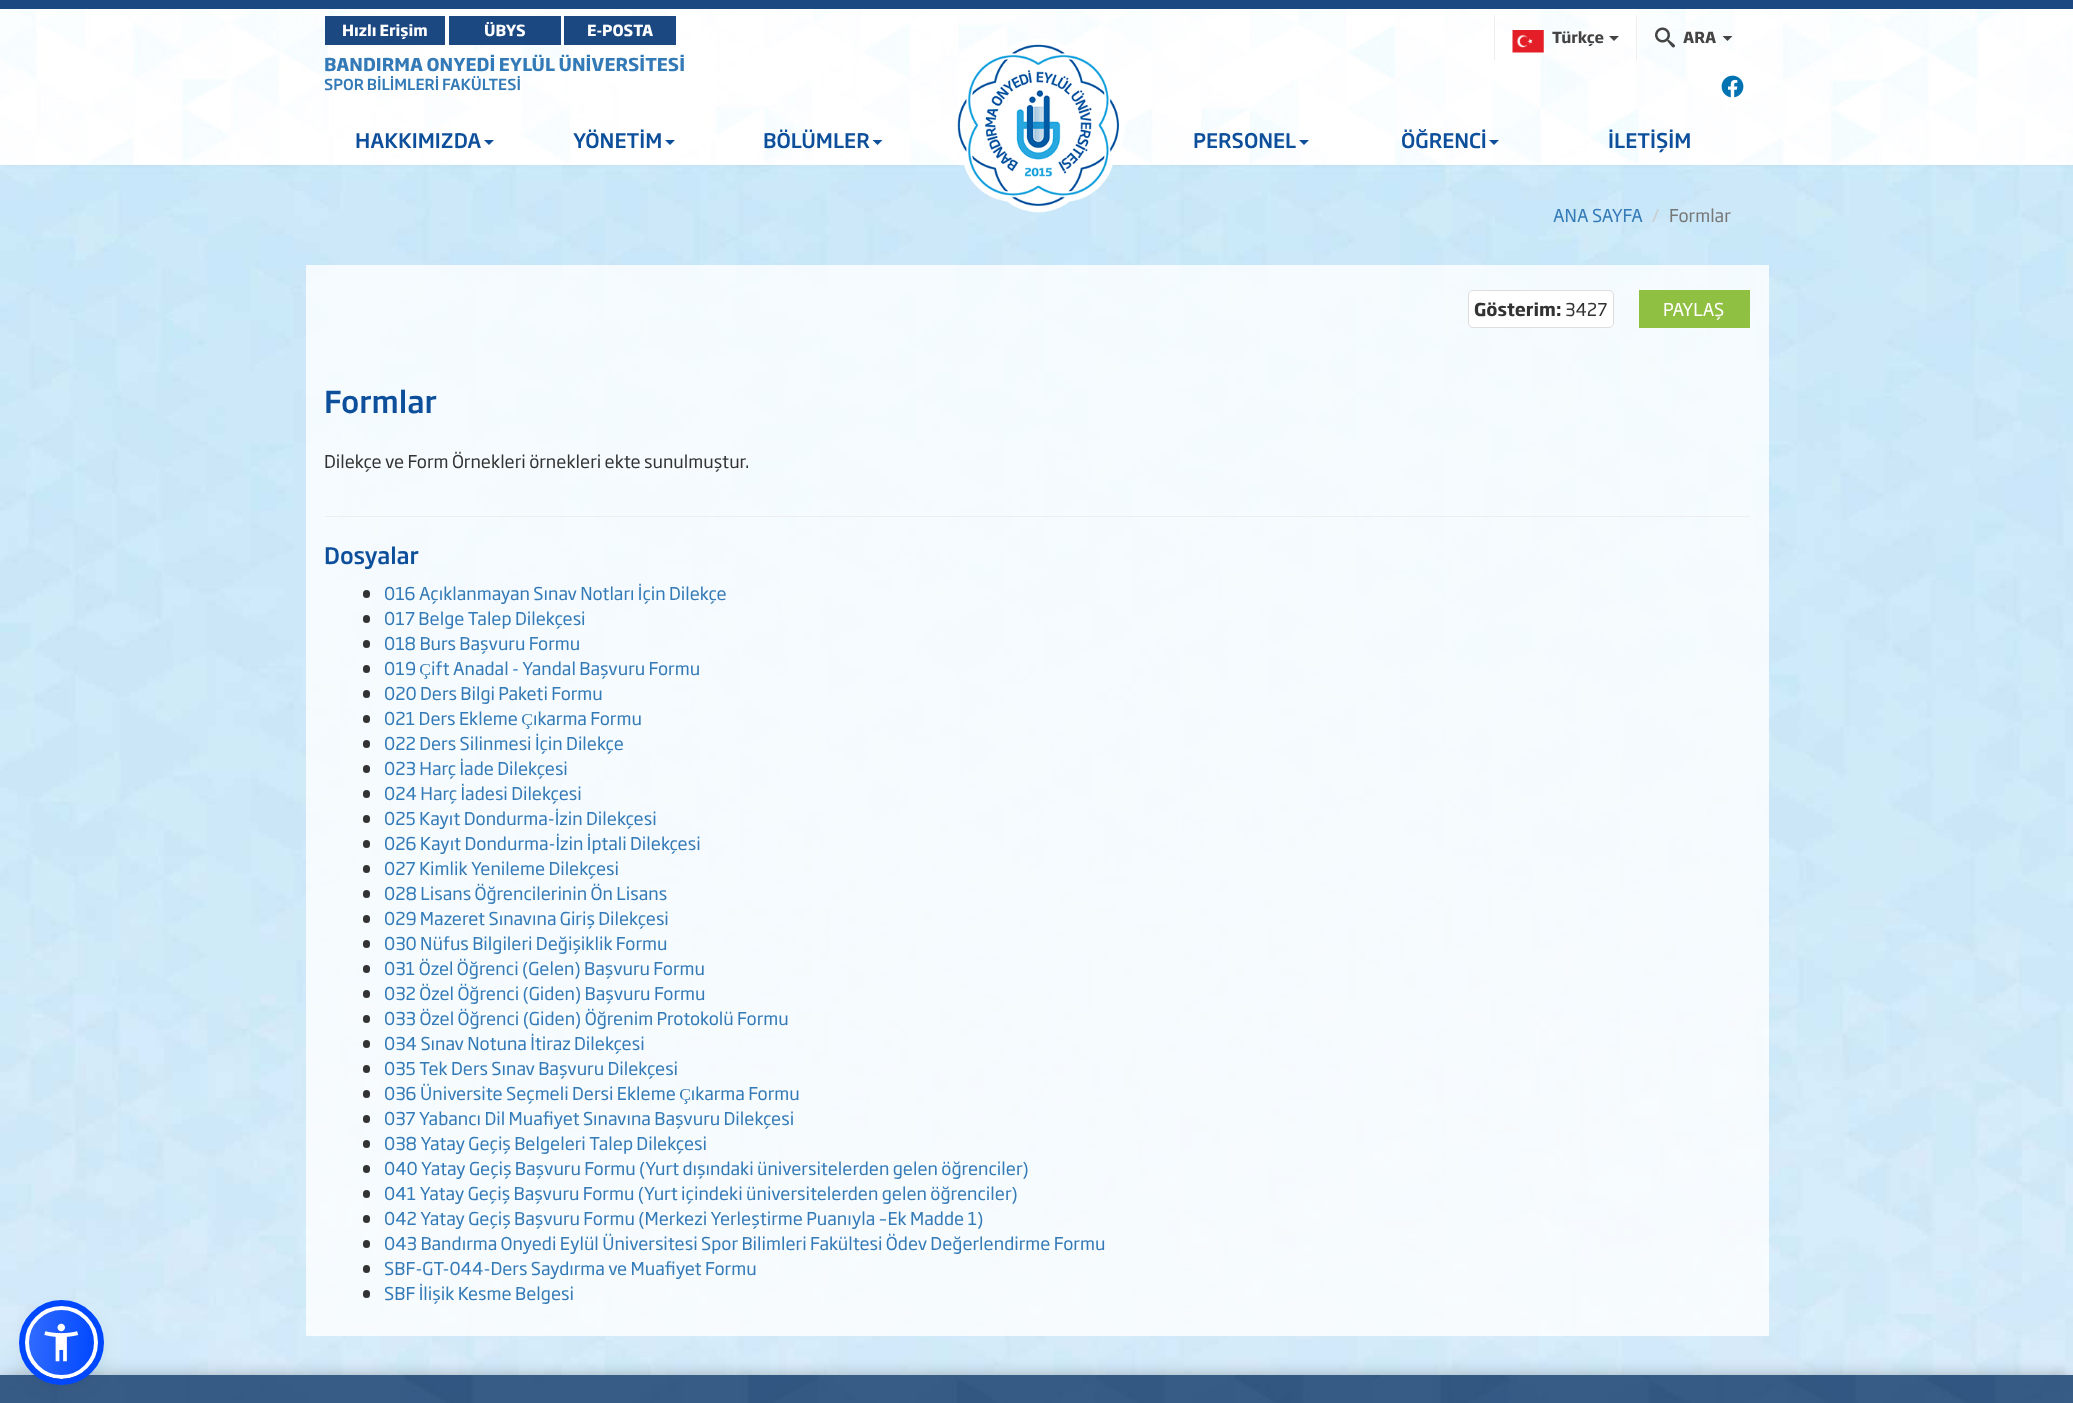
(async () => {
  const canvas = document.querySelector("canvas");
  canvas.width = 2073;
  canvas.height = 1403;
  const ctx = canvas.getContext("2d");
  ctx.miterLimit = 4;
  ctx.fontKerning = "normal";
  async function loadImage(src) {
    const img = new Image();
    img.src = src;
    await img.decode();
    return img;
  }
  let gradient, path;

  ctx.fillStyle = "#ffffff";
  ctx.fillRect(0, 0, 2073, 1403);
  ctx.drawImage(await loadImage("img/1.png"), 0, 9, 2073, 156);
  for (const [x, y, w, h, color] of [
    [0, 0, 2073, 9, "#1b4881"],
    [325, 16, 120, 29, "#1b4881"],
    [449, 16, 112, 29, "#1b4881"],
    [564, 16, 112, 29, "#1b4881"],
    [1494, 15, 1, 45, "#eeeeee"],
  ]) {
    ctx.fillStyle = color;
    ctx.fillRect(x, y, w, h);
  }
  ctx.drawImage(await loadImage("img/2.png"), 1512, 30, 32, 23);
  ctx.fillStyle = "#444444";
  path = new Path2D("M1609 36H1619L1614 41Z");
  ctx.fill(path);
  ctx.fillStyle = "#eeeeee";
  ctx.fillRect(1636, 15, 1, 45);
  ctx.drawImage(await loadImage("img/3.png"), 1655, 27, 20, 21);
  ctx.fillStyle = "#444444";
  path = new Path2D("M1722.5 36H1732.5L1727.5 41Z");
  ctx.fill(path);
  ctx.fillStyle = "#0e4f9b";
  path = new Path2D("M484 140H494L489 145Z");
  ctx.fill(path);
  path = new Path2D("M665 140H675L670 145Z");
  ctx.fill(path);
  path = new Path2D("M872.5 140H882.5L877.5 145Z");
  ctx.fill(path);
  ctx.drawImage(await loadImage("img/6.png"), 0, 165, 2073, 1210);
  ctx.drawImage(await loadImage("img/4.png"), 957, 39, 168, 174);
  path = new Path2D("M1299 140H1309L1304 145Z");
  ctx.fill(path);
  path = new Path2D("M1489 140H1499L1494 145Z");
  ctx.fill(path);
  ctx.drawImage(await loadImage("img/5.png"), 1721, 75, 23, 23);
  ctx.fillStyle = "rgba(255, 255, 255, 0.8)";
  ctx.fillRect(306, 265, 1463, 1071);
  ctx.fillStyle = "#ffffff";
  ctx.beginPath();
  ctx.roundRect(1468.5, 290.5, 145, 37, 4.5);
  ctx.fill();
  ctx.strokeStyle = "#dddddd";
  ctx.stroke();
  ctx.fillStyle = "#90c042";
  ctx.fillRect(1639, 290, 111, 38);
  ctx.fillStyle = "#eeeeee";
  ctx.fillRect(325, 516, 1425, 1);
  ctx.fillStyle = "#333333";
  ctx.beginPath();
  ctx.roundRect(363, 590, 7, 8, 3.5);
  ctx.fill();
  ctx.beginPath();
  ctx.roundRect(363, 615, 7, 8, 3.5);
  ctx.fill();
  ctx.beginPath();
  ctx.roundRect(363, 640, 7, 8, 3.5);
  ctx.fill();
  ctx.beginPath();
  ctx.roundRect(363, 665, 7, 8, 3.5);
  ctx.fill();
  ctx.beginPath();
  ctx.roundRect(363, 690, 7, 8, 3.5);
  ctx.fill();
  ctx.beginPath();
  ctx.roundRect(363, 715, 7, 8, 3.5);
  ctx.fill();
  ctx.beginPath();
  ctx.roundRect(363, 740, 7, 8, 3.5);
  ctx.fill();
  ctx.beginPath();
  ctx.roundRect(363, 765, 7, 8, 3.5);
  ctx.fill();
  ctx.beginPath();
  ctx.roundRect(363, 790, 7, 8, 3.5);
  ctx.fill();
  ctx.beginPath();
  ctx.roundRect(363, 815, 7, 8, 3.5);
  ctx.fill();
  ctx.beginPath();
  ctx.roundRect(363, 840, 7, 8, 3.5);
  ctx.fill();
  ctx.beginPath();
  ctx.roundRect(363, 865, 7, 8, 3.5);
  ctx.fill();
  ctx.beginPath();
  ctx.roundRect(363, 890, 7, 8, 3.5);
  ctx.fill();
  ctx.beginPath();
  ctx.roundRect(363, 915, 7, 8, 3.5);
  ctx.fill();
  ctx.beginPath();
  ctx.roundRect(363, 940, 7, 8, 3.5);
  ctx.fill();
  ctx.beginPath();
  ctx.roundRect(363, 965, 7, 8, 3.5);
  ctx.fill();
  ctx.beginPath();
  ctx.roundRect(363, 990, 7, 8, 3.5);
  ctx.fill();
  ctx.beginPath();
  ctx.roundRect(363, 1015, 7, 8, 3.5);
  ctx.fill();
  ctx.beginPath();
  ctx.roundRect(363, 1040, 7, 8, 3.5);
  ctx.fill();
  ctx.beginPath();
  ctx.roundRect(363, 1065, 7, 8, 3.5);
  ctx.fill();
  ctx.beginPath();
  ctx.roundRect(363, 1090, 7, 8, 3.5);
  ctx.fill();
  ctx.beginPath();
  ctx.roundRect(363, 1115, 7, 8, 3.5);
  ctx.fill();
  ctx.beginPath();
  ctx.roundRect(363, 1140, 7, 8, 3.5);
  ctx.fill();
  ctx.beginPath();
  ctx.roundRect(363, 1165, 7, 8, 3.5);
  ctx.fill();
  ctx.beginPath();
  ctx.roundRect(363, 1190, 7, 8, 3.5);
  ctx.fill();
  ctx.beginPath();
  ctx.roundRect(363, 1215, 7, 8, 3.5);
  ctx.fill();
  ctx.beginPath();
  ctx.roundRect(363, 1240, 7, 8, 3.5);
  ctx.fill();
  ctx.beginPath();
  ctx.roundRect(363, 1265, 7, 8, 3.5);
  ctx.fill();
  ctx.beginPath();
  ctx.roundRect(363, 1290, 7, 8, 3.5);
  ctx.fill();
  ctx.fillStyle = "rgba(0, 0, 0, 0.4)";
  ctx.filter = "blur(9px)";
  ctx.beginPath();
  ctx.rect(4, 1379, 2066, 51);
  ctx.fill();
  ctx.filter = "none";
  ctx.drawImage(await loadImage("img/8.png"), 0, 1375, 2073, 28);
  ctx.fillStyle = "rgba(93, 100, 148, 0.2)";
  ctx.filter = "blur(2.5px)";
  ctx.beginPath();
  ctx.roundRect(25, 1309, 73, 72, 36);
  ctx.fill();
  ctx.filter = "none";
  ctx.fillStyle = "rgba(37, 44, 97, 0.15)";
  ctx.filter = "blur(9.5px)";
  ctx.beginPath();
  ctx.roundRect(25, 1313, 73, 72, 36);
  ctx.fill();
  ctx.filter = "none";
  ctx.save();
  ctx.beginPath();
  ctx.roundRect(25, 1306, 73, 73, 36.5);
  ctx.clip();
  gradient = ctx.createLinearGradient(26, 1339, 97, 1346);
  gradient.addColorStop(0, "#326cff");
  gradient.addColorStop(1, "#0048ff");
  ctx.fillStyle = gradient;
  ctx.fillRect(29, 1310, 65, 65);
  ctx.restore();
  ctx.beginPath();
  ctx.arc(61.5, 1342.5, 34.5, 0, Math.PI * 2);
  ctx.strokeStyle = "#ffffff";
  ctx.lineWidth = 4;
  ctx.stroke();
  ctx.beginPath();
  ctx.arc(61.5, 1342.5, 39.5, 0, Math.PI * 2);
  ctx.strokeStyle = "#0048ff";
  ctx.lineWidth = 6;
  ctx.stroke();
  ctx.drawImage(await loadImage("img/7.png"), 44, 1323, 35, 39);
  ctx.font = "bold 15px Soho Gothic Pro";
  ctx.fillStyle = "#ffffff";
  for (const [text, x, y] of [
    ["Hızlı Erişim", 342, 36],
    ["ÜBYS", 484, 36],
    ["E-POSTA", 587, 36],
  ]) {
    ctx.fillText(text, x, y);
  }
  ctx.fillStyle = "#444444";
  ctx.fillText("Türkçe", 1552, 43);
  ctx.fillText("ARA", 1683, 43);
  ctx.font = "bold 17.5px Soho Gothic Pro";
  ctx.fillStyle = "#337ab7";
  ctx.fillText("BANDIRMA ONYEDİ EYLÜL ÜNİVERSİTESİ", 324, 71);
  ctx.font = "500 15px Soho Gothic Pro";
  ctx.fillText("SPOR BİLİMLERİ FAKÜLTESİ", 324, 90);
  ctx.font = "500 20px Soho Gothic Pro";
  ctx.fillStyle = "#0e4f9b";
  for (const [text, x, y] of [
    ["HAKKIMIZDA", 355, 148],
    ["YÖNETİM", 573, 148],
    ["BÖLÜMLER", 763, 148],
    ["PERSONEL", 1193, 148],
    ["ÖĞRENCİ", 1401, 148],
    ["İLETİŞİM", 1608, 148],
  ]) {
    ctx.fillText(text, x, y);
  }
  ctx.font = "17.5px Soho Gothic Pro";
  ctx.fillStyle = "#337ab7";
  ctx.fillText("ANA SAYFA", 1553, 222);
  ctx.fillStyle = "#cccccc";
  ctx.fillText("/", 1652, 222);
  ctx.fillStyle = "#777777";
  ctx.fillText("Formlar", 1669, 222);
  ctx.font = "bold 17.5px Soho Gothic Pro";
  ctx.fillStyle = "#333333";
  ctx.fillText("Gösterim:", 1474, 316);
  ctx.font = "17.5px Soho Gothic Pro";
  ctx.fillText("3427", 1565, 316);
  ctx.fillStyle = "#ffffff";
  ctx.fillText("PAYLAŞ", 1663, 316);
  ctx.font = "500 30px Soho Gothic Pro";
  ctx.fillStyle = "#0e4f9b";
  ctx.fillText("Formlar", 324, 413);
  ctx.font = "17.5px Soho Gothic Pro";
  ctx.fillStyle = "#333333";
  ctx.fillText("Dilekçe ve Form Örnekleri örnekleri ekte sunulmuştur.", 324, 468);
  ctx.font = "500 22.5px Soho Gothic Pro";
  ctx.fillStyle = "#0e4f9b";
  ctx.fillText("Dosyalar", 324, 564);
  ctx.font = "17.5px Soho Gothic Pro";
  ctx.fillStyle = "#337ab7";
  for (const [text, x, y] of [
    ["016 Açıklanmayan Sınav Notları İçin Dilekçe", 384, 600],
    ["017 Belge Talep Dilekçesi", 384, 625],
    ["018 Burs Başvuru Formu", 384, 650],
    ["019 Çift Anadal - Yandal Başvuru Formu", 384, 675],
    ["020 Ders Bilgi Paketi Formu", 384, 700],
    ["021 Ders Ekleme Çıkarma Formu", 384, 725],
    ["022 Ders Silinmesi İçin Dilekçe", 384, 750],
    ["023 Harç İade Dilekçesi", 384, 775],
    ["024 Harç İadesi Dilekçesi", 384, 800],
    ["025 Kayıt Dondurma-İzin Dilekçesi", 384, 825],
    ["026 Kayıt Dondurma-İzin İptali Dilekçesi", 384, 850],
    ["027 Kimlik Yenileme Dilekçesi", 384, 875],
    ["028 Lisans Öğrencilerinin Ön Lisans", 384, 900],
    ["029 Mazeret Sınavına Giriş Dilekçesi", 384, 925],
    ["030 Nüfus Bilgileri Değişiklik Formu", 384, 950],
    ["031 Özel Öğrenci (Gelen) Başvuru Formu", 384, 975],
    ["032 Özel Öğrenci (Giden) Başvuru Formu", 384, 1000],
    ["033 Özel Öğrenci (Giden) Öğrenim Protokolü Formu", 384, 1025],
    ["034 Sınav Notuna İtiraz Dilekçesi", 384, 1050],
    ["035 Tek Ders Sınav Başvuru Dilekçesi", 384, 1075],
    ["036 Üniversite Seçmeli Dersi Ekleme Çıkarma Formu", 384, 1100],
    ["037 Yabancı Dil Muafiyet Sınavına Başvuru Dilekçesi", 384, 1125],
    ["038 Yatay Geçiş Belgeleri Talep Dilekçesi", 384, 1150],
    ["040 Yatay Geçiş Başvuru Formu (Yurt dışındaki üniversitelerden gelen öğrenciler)", 384, 1175],
    ["041 Yatay Geçiş Başvuru Formu (Yurt içindeki üniversitelerden gelen öğrenciler)", 384, 1200],
    ["042 Yatay Geçiş Başvuru Formu (Merkezi Yerleştirme Puanıyla –Ek Madde 1)", 384, 1225],
    ["043 Bandırma Onyedi Eylül Üniversitesi Spor Bilimleri Fakültesi Ödev Değerlendirme Formu", 384, 1250],
    ["SBF-GT-044-Ders Saydırma ve Muafiyet Formu", 384, 1275],
    ["SBF İlişik Kesme Belgesi", 384, 1300],
  ]) {
    ctx.fillText(text, x, y);
  }
})();
